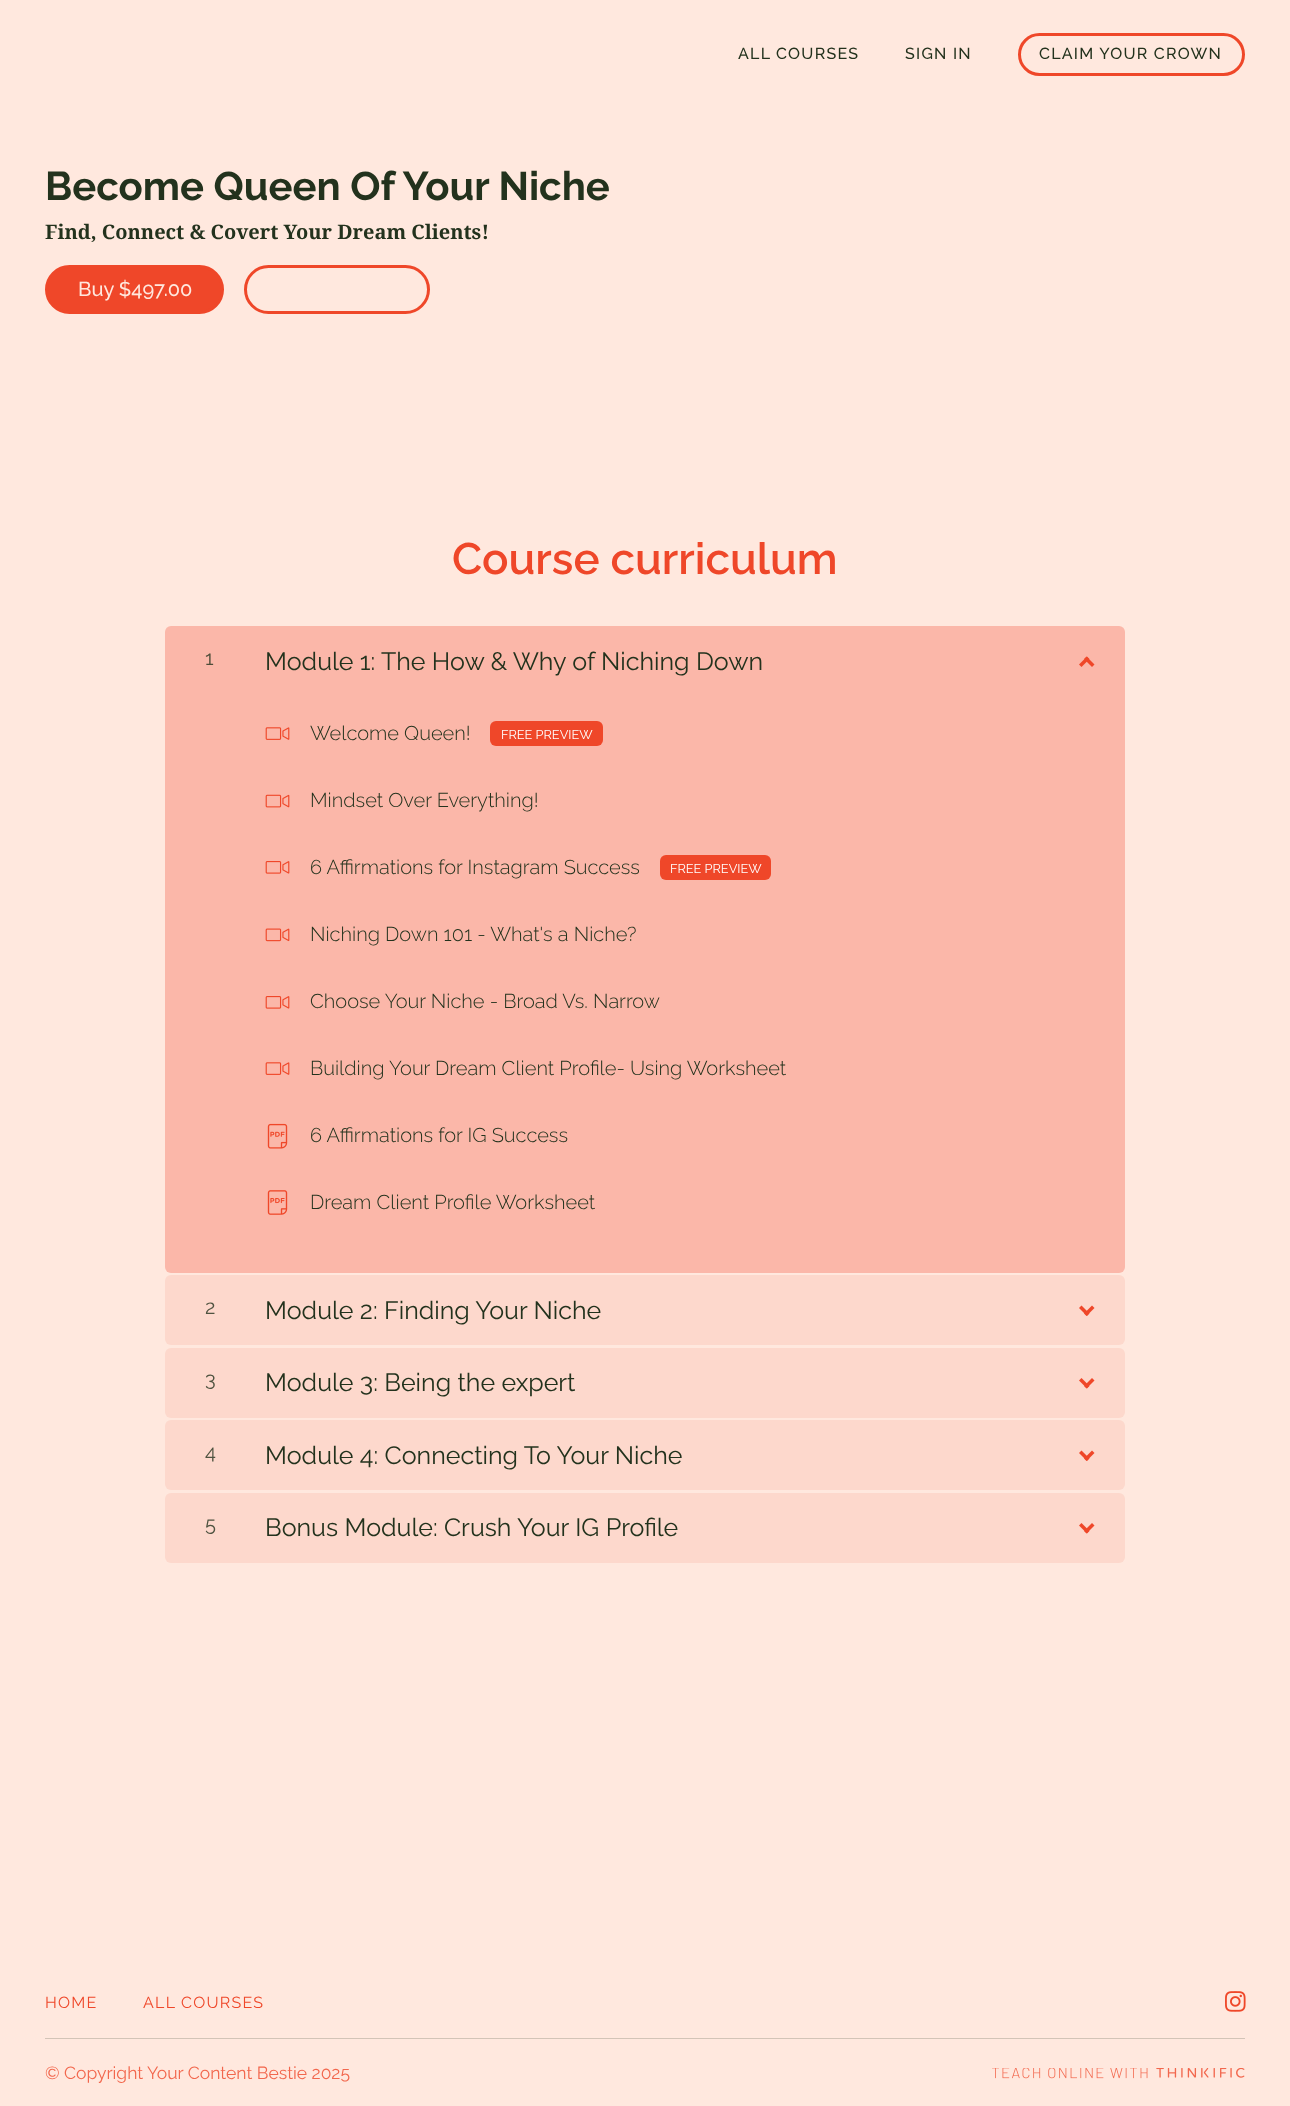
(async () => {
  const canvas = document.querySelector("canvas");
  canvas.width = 1290;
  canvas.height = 2106;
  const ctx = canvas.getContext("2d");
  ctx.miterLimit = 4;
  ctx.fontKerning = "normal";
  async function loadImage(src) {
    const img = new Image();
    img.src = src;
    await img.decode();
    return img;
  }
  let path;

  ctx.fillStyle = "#ffe8de";
  ctx.fillRect(0, 0, 1290, 2106);
  ctx.beginPath();
  ctx.roundRect(1019.5, 34.5, 224, 40, 20);
  ctx.strokeStyle = "#ef4729";
  ctx.lineWidth = 3;
  ctx.stroke();
  ctx.fillStyle = "#ef4729";
  ctx.beginPath();
  ctx.roundRect(46.5, 266.5, 176, 46, 23);
  ctx.fill();
  ctx.stroke();
  ctx.beginPath();
  ctx.roundRect(245.5, 266.5, 183, 46, 23);
  ctx.stroke();
  ctx.fillStyle = "#fbb7a9";
  ctx.beginPath();
  ctx.roundRect(165, 626, 960, 647, 6);
  ctx.fill();
  ctx.fillStyle = "#ef4729";
  path = new Path2D("M1084 659L1086.5 656.5L1094.5 664.5L1092 667Z");
  ctx.fill(path);
  path = new Path2D("M1087 656.5L1089.5 659L1081.5 667L1079 664.5Z");
  ctx.fill(path);
  ctx.drawImage(await loadImage("img/1.png"), 265, 727, 25, 13);
  ctx.beginPath();
  ctx.roundRect(490, 721, 113, 25, 6);
  ctx.fill();
  ctx.drawImage(await loadImage("img/2.png"), 265, 794, 25, 14);
  ctx.drawImage(await loadImage("img/3.png"), 265, 861, 25, 13);
  ctx.beginPath();
  ctx.roundRect(660, 855, 111, 25, 6);
  ctx.fill();
  ctx.drawImage(await loadImage("img/4.png"), 265, 928, 25, 14);
  ctx.drawImage(await loadImage("img/3.png"), 265, 996, 25, 13);
  ctx.drawImage(await loadImage("img/1.png"), 265, 1062, 25, 13);
  ctx.drawImage(await loadImage("img/5.png"), 267, 1123, 21, 26);
  ctx.drawImage(await loadImage("img/6.png"), 267, 1190, 21, 25);
  ctx.fillStyle = "#fdd8cc";
  ctx.beginPath();
  ctx.roundRect(165, 1275, 960, 70, 6);
  ctx.fill();
  ctx.fillStyle = "#ef4729";
  path = new Path2D("M1092 1305.5L1094.5 1308L1086.5 1316L1084 1313.5Z");
  ctx.fill(path);
  path = new Path2D("M1079 1308L1081.5 1305.5L1089.5 1313.5L1087 1316Z");
  ctx.fill(path);
  ctx.fillStyle = "#fdd8cc";
  ctx.beginPath();
  ctx.roundRect(165, 1348, 960, 70, 6);
  ctx.fill();
  ctx.fillStyle = "#ef4729";
  path = new Path2D("M1092 1378L1094.5 1380.5L1086.5 1388.5L1084 1386Z");
  ctx.fill(path);
  path = new Path2D("M1079 1380.5L1081.5 1378L1089.5 1386L1087 1388.5Z");
  ctx.fill(path);
  ctx.fillStyle = "#fdd8cc";
  ctx.beginPath();
  ctx.roundRect(165, 1420, 960, 70, 6);
  ctx.fill();
  ctx.fillStyle = "#ef4729";
  path = new Path2D("M1092 1450.5L1094.5 1453L1086.5 1461L1084 1458.5Z");
  ctx.fill(path);
  path = new Path2D("M1079 1453L1081.5 1450.5L1089.5 1458.5L1087 1461Z");
  ctx.fill(path);
  ctx.fillStyle = "#fdd8cc";
  ctx.beginPath();
  ctx.roundRect(165, 1493, 960, 70, 6);
  ctx.fill();
  ctx.fillStyle = "#ef4729";
  path = new Path2D("M1092 1523L1094.5 1525.5L1086.5 1533.5L1084 1531Z");
  ctx.fill(path);
  path = new Path2D("M1079 1525.5L1081.5 1523L1089.5 1531L1087 1533.5Z");
  ctx.fill(path);
  ctx.drawImage(await loadImage("img/7.png"), 1225, 1991, 21, 21);
  ctx.fillStyle = "#d3c4b7";
  ctx.fillRect(45, 2038, 1200, 1);
  ctx.drawImage(await loadImage("img/8.png"), 992, 2068, 253, 11);
  ctx.letterSpacing = "1.25px";
  ctx.font = "500 16px Raleway";
  ctx.fillStyle = "#23321d";
  for (const [text, x, y] of [
    ["ALL COURSES", 738, 59],
    ["SIGN IN", 905, 59],
    ["CLAIM YOUR CROWN", 1039, 59],
  ]) {
    ctx.fillText(text, x, y);
  }
  ctx.letterSpacing = "0px";
  ctx.font = "bold 40px Raleway";
  ctx.fillText("Become Queen Of Your Niche", 45, 200);
  ctx.font = "bold 20px Droid Serif";
  ctx.fillText("Find, Connect & Covert Your Dream Clients!", 45, 239);
  ctx.font = "500 20px Raleway";
  ctx.fillStyle = "#ffe8de";
  ctx.fillText("Buy $497.00", 78, 296);
  ctx.font = "600 44px Raleway";
  ctx.fillStyle = "#ef4729";
  ctx.fillText("Course curriculum", 452, 574);
  ctx.font = "20px Raleway";
  ctx.fillStyle = "#4e4d39";
  ctx.fillText("1", 205, 665);
  ctx.font = "25px Raleway";
  ctx.fillStyle = "#23321d";
  ctx.fillText("Module 1: The How & Why of Niching Down", 265, 670);
  ctx.font = "300 20px Raleway";
  ctx.fillText("Welcome Queen!", 310, 740);
  ctx.font = "12.75px Raleway";
  ctx.fillStyle = "#ffffff";
  ctx.fillText("FREE PREVIEW", 501, 739);
  ctx.font = "300 20px Raleway";
  ctx.fillStyle = "#23321d";
  ctx.fillText("Mindset Over Everything!", 310, 807);
  ctx.fillText("6 Affirmations for Instagram Success", 310, 874);
  ctx.font = "12.75px Raleway";
  ctx.fillStyle = "#ffffff";
  ctx.fillText("FREE PREVIEW", 670, 873);
  ctx.font = "300 20px Raleway";
  ctx.fillStyle = "#23321d";
  for (const [text, x, y] of [
    ["Niching Down 101 - What's a Niche?", 310, 941],
    ["Choose Your Niche - Broad Vs. Narrow", 310, 1008],
    ["Building Your Dream Client Profile- Using Worksheet", 310, 1075],
    ["6 Affirmations for IG Success", 310, 1142],
    ["Dream Client Profile Worksheet", 310, 1209],
  ]) {
    ctx.fillText(text, x, y);
  }
  ctx.font = "20px Raleway";
  ctx.fillStyle = "#4f5340";
  ctx.fillText("2", 205, 1314);
  ctx.font = "25px Raleway";
  ctx.fillStyle = "#23321d";
  ctx.fillText("Module 2: Finding Your Niche", 265, 1319);
  ctx.font = "20px Raleway";
  ctx.fillStyle = "#4f5340";
  ctx.fillText("3", 205, 1386);
  ctx.font = "25px Raleway";
  ctx.fillStyle = "#23321d";
  ctx.fillText("Module 3: Being the expert", 265, 1391);
  ctx.font = "20px Raleway";
  ctx.fillStyle = "#4f5340";
  ctx.fillText("4", 205, 1459);
  ctx.font = "25px Raleway";
  ctx.fillStyle = "#23321d";
  ctx.fillText("Module 4: Connecting To Your Niche", 265, 1464);
  ctx.font = "20px Raleway";
  ctx.fillStyle = "#4f5340";
  ctx.fillText("5", 205, 1531);
  ctx.font = "25px Raleway";
  ctx.fillStyle = "#23321d";
  ctx.fillText("Bonus Module: Crush Your IG Profile", 265, 1536);
  ctx.letterSpacing = "1.25px";
  ctx.font = "16px Raleway";
  ctx.fillStyle = "#ef4729";
  ctx.fillText("HOME", 45, 2008);
  ctx.fillText("ALL COURSES", 143, 2008);
  ctx.letterSpacing = "0px";
  ctx.font = "17.5px Raleway";
  ctx.fillStyle = "#f2674d";
  ctx.fillText("© Copyright Your Content Bestie 2025", 45, 2079);
})();
